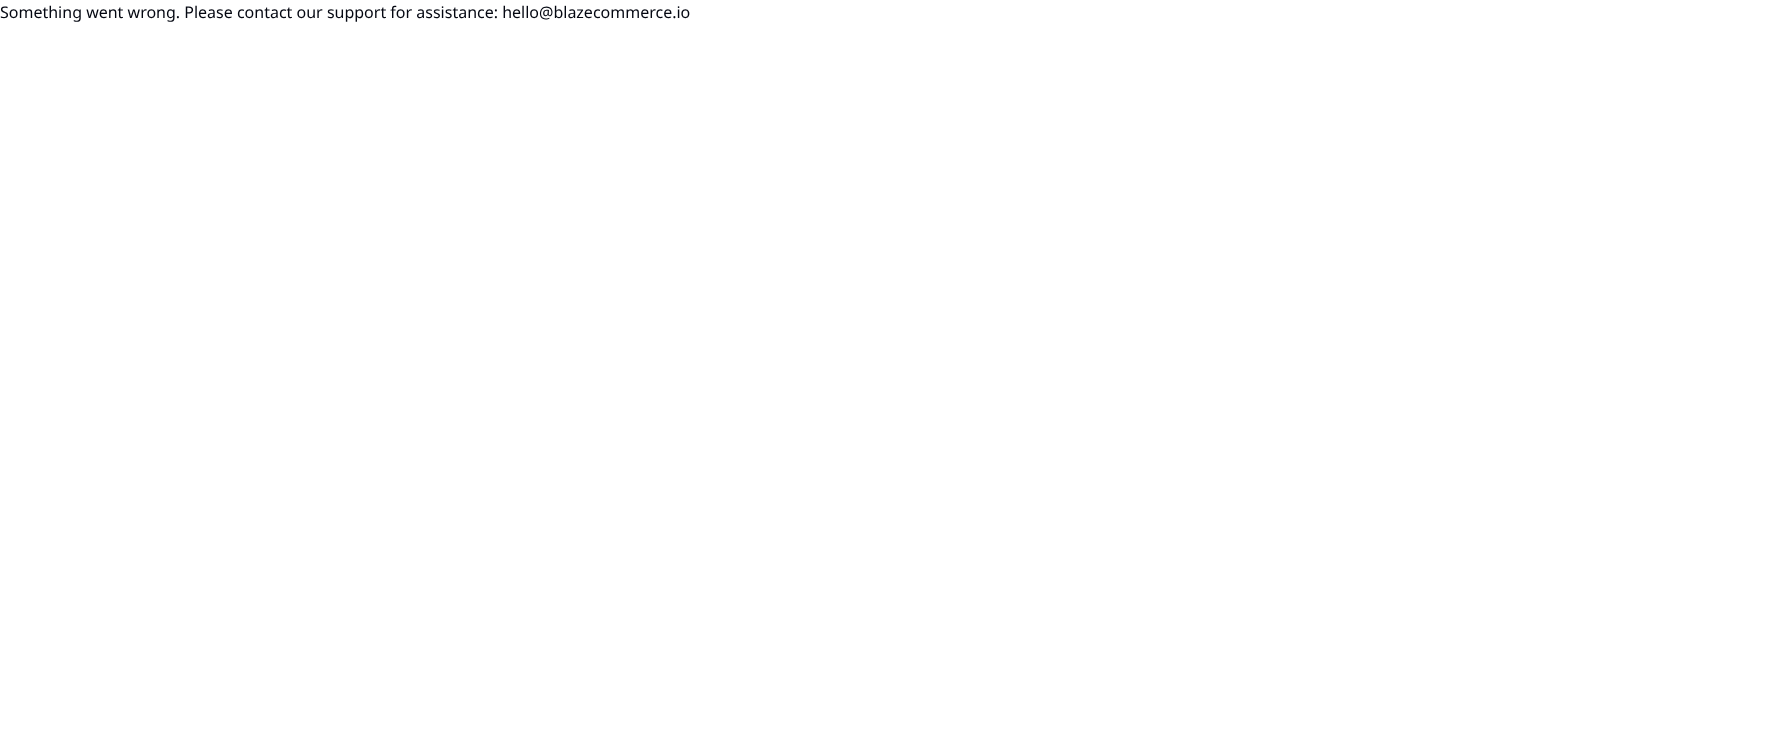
(async () => {
  const canvas = document.querySelector("canvas");
  canvas.width = 1770;
  canvas.height = 736;
  const ctx = canvas.getContext("2d");
  ctx.miterLimit = 4;
  ctx.fontKerning = "normal";

  ctx.fillStyle = "#ffffff";
  ctx.fillRect(0, 0, 1770, 736);
  ctx.font = "16px Noto Sans";
  ctx.fillStyle = "#040711";
  ctx.fillText("Something went wrong. Please contact our support for assistance: hello@blazecommerce.io", 0, 18);
})();
